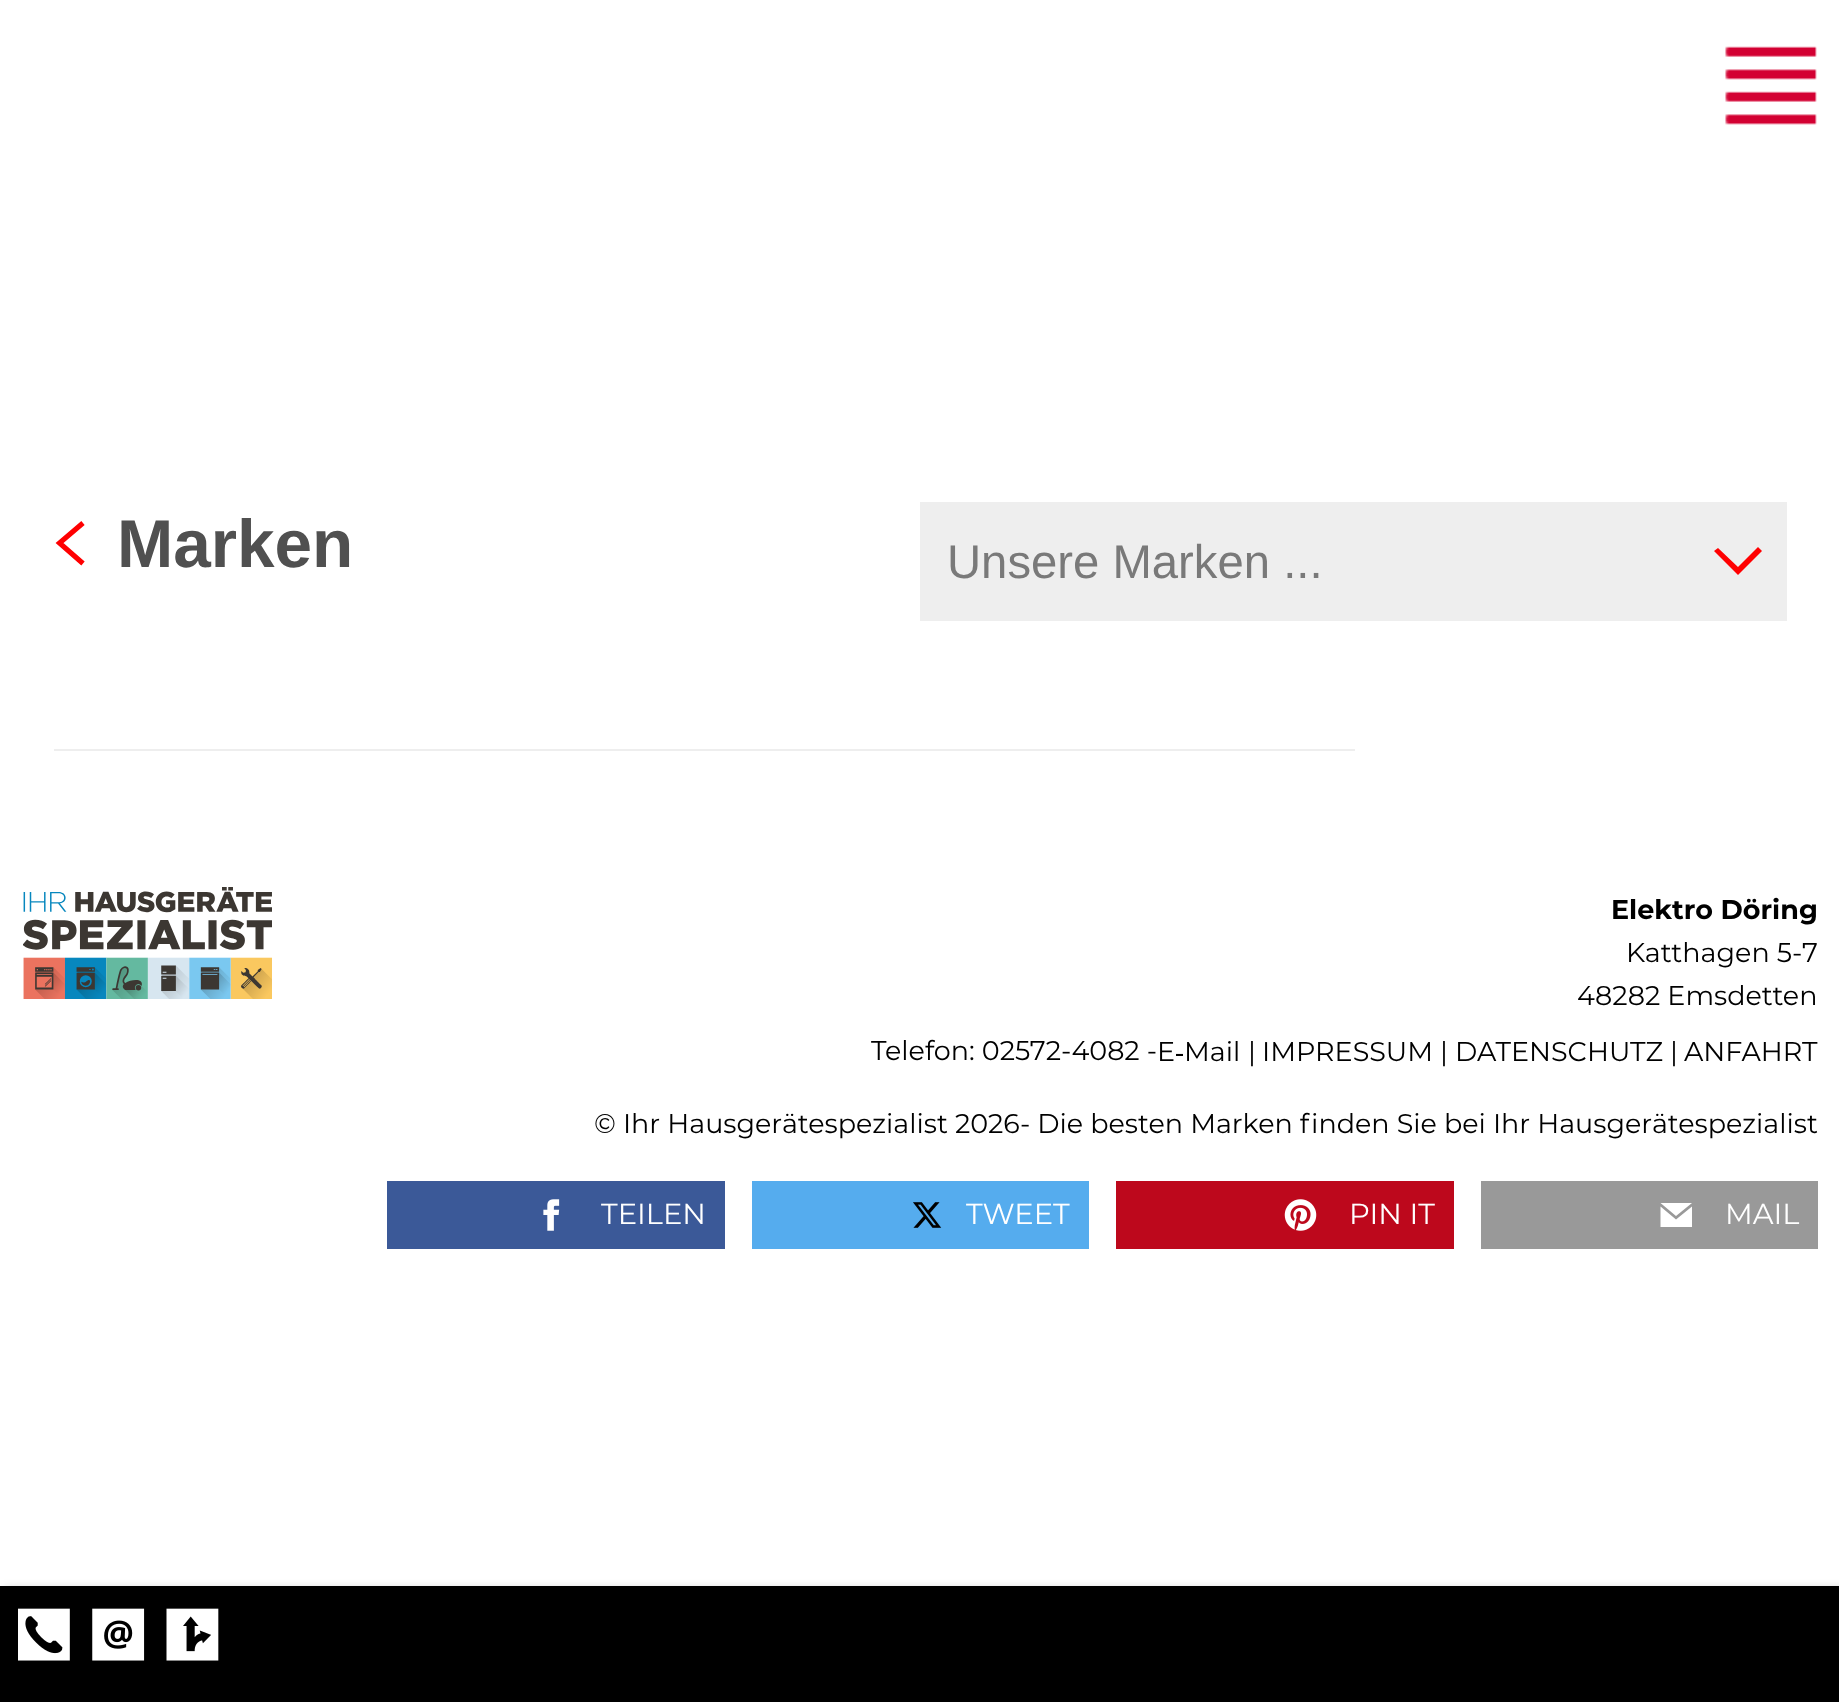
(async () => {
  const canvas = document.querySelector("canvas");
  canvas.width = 1839;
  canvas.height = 1702;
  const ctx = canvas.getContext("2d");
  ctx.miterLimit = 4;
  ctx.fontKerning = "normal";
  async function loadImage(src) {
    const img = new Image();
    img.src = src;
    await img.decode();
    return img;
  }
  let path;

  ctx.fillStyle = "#ffffff";
  ctx.fillRect(0, 0, 1839, 1702);
  ctx.drawImage(await loadImage("img/1.png"), 1725, 46, 92, 79);
  path = new Path2D("M83 523L59.5 543L83 563.5");
  ctx.strokeStyle = "#ff0001";
  ctx.lineWidth = 5.1;
  ctx.stroke(path);
  ctx.fillStyle = "#eeeeee";
  ctx.fillRect(920, 502, 867, 119);
  ctx.fillStyle = "#ff0001";
  path = new Path2D("M1714 551L1718 548L1738 567L1758 547L1762 551L1738 575Z");
  ctx.fill(path, "evenodd");
  ctx.fillStyle = "#eeeeee";
  ctx.fillRect(54, 749, 1301, 2);
  ctx.drawImage(await loadImage("img/2.png"), 23, 887, 249, 112);
  ctx.fillStyle = "#3b5998";
  ctx.fillRect(387, 1181, 338, 68);
  ctx.drawImage(await loadImage("img/3.png"), 543, 1199, 17, 32);
  ctx.fillStyle = "#55acee";
  ctx.fillRect(752, 1181, 337, 68);
  ctx.drawImage(await loadImage("img/4.png"), 913, 1202, 29, 26);
  ctx.fillStyle = "#bd081c";
  ctx.fillRect(1116, 1181, 338, 68);
  ctx.drawImage(await loadImage("img/5.png"), 1284, 1199, 33, 32);
  ctx.fillStyle = "#999999";
  ctx.fillRect(1481, 1181, 337, 68);
  ctx.fillStyle = "#ffffff";
  path = new Path2D("M1676 1216L1660.5 1203H1692ZM1676 1219.5L1660.5 1206.5V1227H1692V1206.5Z");
  ctx.fill(path);
  ctx.fillStyle = "rgba(50, 50, 50, 0.5)";
  ctx.filter = "blur(5.5px)";
  ctx.beginPath();
  ctx.rect(5, 1591, 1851, 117);
  ctx.fill();
  ctx.filter = "none";
  ctx.fillStyle = "#000000";
  ctx.fillRect(0, 1586, 1839, 116);
  ctx.drawImage(await loadImage("img/6.png"), 18, 1608, 52, 53);
  ctx.drawImage(await loadImage("img/7.png"), 92, 1608, 53, 53);
  ctx.drawImage(await loadImage("img/8.png"), 166, 1608, 53, 53);
  ctx.font = "bold 67.5px Liberation Sans";
  ctx.fillStyle = "#505050";
  ctx.fillText("Marken", 117, 567);
  ctx.font = "47.25px Liberation Sans";
  ctx.fillStyle = "#797979";
  ctx.fillText("Unsere Marken ...", 947, 578);
  ctx.font = "bold 27px Montserrat";
  ctx.fillStyle = "#000000";
  ctx.fillText("Elektro Döring", 1611, 919);
  ctx.font = "27px Montserrat";
  for (const [text, x, y] of [
    ["Katthagen 5-7", 1626, 962],
    ["48282 Emsdetten", 1577, 1005],
    ["Telefon: 02572-4082 -", 871, 1060],
    ["E‑Mail", 1157, 1061],
    ["|", 1248, 1061],
    ["IMPRESSUM", 1262, 1061],
    ["|", 1440, 1061],
    ["DATENSCHUTZ", 1455, 1061],
    ["|", 1670, 1061],
    ["ANFAHRT", 1684, 1061],
    ["© Ihr Hausgerätespezialist 2026- Die besten Marken finden Sie bei Ihr Hausgerätespezialist", 594, 1133],
  ]) {
    ctx.fillText(text, x, y);
  }
  ctx.font = "29px Montserrat";
  ctx.fillStyle = "#ffffff";
  for (const [text, x, y] of [
    ["TEILEN", 601, 1224],
    ["TWEET", 966, 1224],
    ["PIN IT", 1349, 1224],
    ["MAIL", 1725, 1224],
  ]) {
    ctx.fillText(text, x, y);
  }
})();
